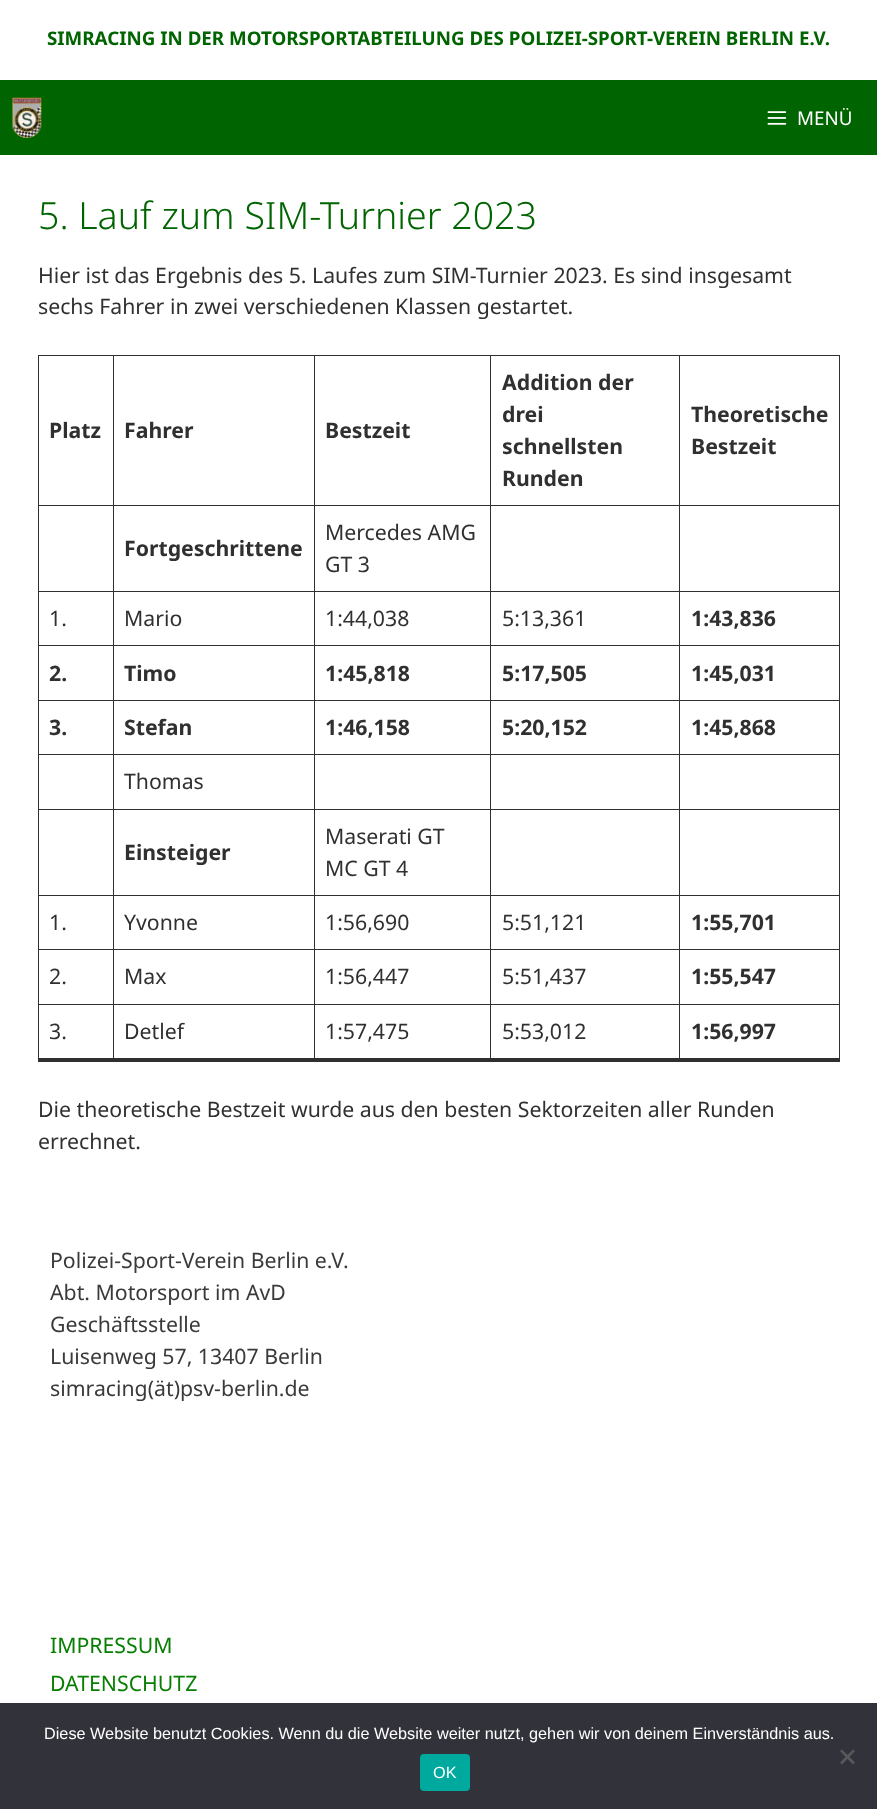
(async () => {
  const canvas = document.querySelector("canvas");
  canvas.width = 877;
  canvas.height = 1809;
  const ctx = canvas.getContext("2d");
  ctx.miterLimit = 4;
  ctx.fontKerning = "normal";
  async function loadImage(src) {
    const img = new Image();
    img.src = src;
    await img.decode();
    return img;
  }
  let path;

  ctx.fillStyle = "#ffffff";
  ctx.fillRect(0, 0, 877, 1809);
  ctx.fillStyle = "#006400";
  ctx.fillRect(0, 80, 877, 75);
  ctx.drawImage(await loadImage("img/1.png"), 12, 97, 30, 41);
  ctx.drawImage(await loadImage("img/2.png"), 767, 111, 20, 14);
  for (const [x, y, w, h, color] of [
    [679, 1004, 161, 1, "#303030"],
    [679, 1004, 1, 56, "#303030"],
    [490, 1004, 190, 1, "#303030"],
    [490, 1004, 1, 56, "#303030"],
    [314, 1004, 177, 1, "#303030"],
    [314, 1004, 1, 56, "#303030"],
    [113, 1004, 202, 1, "#303030"],
    [113, 1004, 1, 56, "#303030"],
    [38, 1004, 76, 1, "#303030"],
    [38, 1004, 1, 56, "#303030"],
    [839, 1004, 1, 56, "#303030"],
    [38, 1058, 802, 4, "#303030"],
    [679, 355, 161, 1, "#303030"],
    [679, 505, 161, 1, "#303030"],
    [679, 591, 161, 1, "#303030"],
    [679, 645, 161, 1, "#303030"],
    [679, 700, 161, 1, "#303030"],
    [679, 754, 161, 1, "#303030"],
    [679, 809, 161, 1, "#303030"],
    [679, 895, 161, 1, "#303030"],
    [679, 949, 161, 1, "#303030"],
    [679, 949, 1, 56, "#303030"],
    [490, 949, 190, 1, "#303030"],
    [679, 895, 1, 55, "#303030"],
    [490, 895, 190, 1, "#303030"],
    [679, 809, 1, 87, "#303030"],
    [490, 809, 190, 1, "#303030"],
    [679, 754, 1, 56, "#303030"],
    [490, 754, 190, 1, "#303030"],
    [679, 700, 1, 55, "#303030"],
    [490, 700, 190, 1, "#303030"],
    [679, 645, 1, 56, "#303030"],
    [490, 645, 190, 1, "#303030"],
    [679, 591, 1, 55, "#303030"],
    [490, 591, 190, 1, "#303030"],
    [679, 505, 1, 88, "#303030"],
    [490, 505, 190, 1, "#303030"],
    [679, 355, 1, 151, "#303030"],
    [490, 355, 190, 1, "#303030"],
    [490, 949, 1, 56, "#303030"],
    [314, 949, 177, 1, "#303030"],
    [490, 895, 1, 55, "#303030"],
    [314, 895, 177, 1, "#303030"],
    [490, 809, 1, 87, "#303030"],
    [314, 809, 177, 1, "#303030"],
    [490, 754, 1, 56, "#303030"],
    [314, 754, 177, 1, "#303030"],
    [490, 700, 1, 55, "#303030"],
    [314, 700, 177, 1, "#303030"],
    [490, 645, 1, 56, "#303030"],
    [314, 645, 177, 1, "#303030"],
    [490, 591, 1, 55, "#303030"],
    [314, 591, 177, 1, "#303030"],
    [490, 505, 1, 88, "#303030"],
    [314, 505, 177, 1, "#303030"],
    [490, 355, 1, 151, "#303030"],
    [314, 355, 177, 1, "#303030"],
    [314, 949, 1, 56, "#303030"],
    [113, 949, 202, 1, "#303030"],
    [314, 895, 1, 55, "#303030"],
    [113, 895, 202, 1, "#303030"],
    [314, 809, 1, 87, "#303030"],
    [113, 809, 202, 1, "#303030"],
    [314, 754, 1, 56, "#303030"],
    [113, 754, 202, 1, "#303030"],
    [314, 700, 1, 55, "#303030"],
    [113, 700, 202, 1, "#303030"],
    [314, 645, 1, 56, "#303030"],
    [113, 645, 202, 1, "#303030"],
    [314, 591, 1, 55, "#303030"],
    [113, 591, 202, 1, "#303030"],
    [314, 505, 1, 88, "#303030"],
    [113, 505, 202, 1, "#303030"],
    [314, 355, 1, 151, "#303030"],
    [113, 355, 202, 1, "#303030"],
    [113, 949, 1, 56, "#303030"],
    [38, 949, 76, 1, "#303030"],
    [113, 895, 1, 55, "#303030"],
    [38, 895, 76, 1, "#303030"],
    [113, 809, 1, 87, "#303030"],
    [38, 809, 76, 1, "#303030"],
    [113, 754, 1, 56, "#303030"],
    [38, 754, 76, 1, "#303030"],
    [113, 700, 1, 55, "#303030"],
    [38, 700, 76, 1, "#303030"],
    [113, 645, 1, 56, "#303030"],
    [38, 645, 76, 1, "#303030"],
    [113, 591, 1, 55, "#303030"],
    [38, 591, 76, 1, "#303030"],
    [113, 505, 1, 88, "#303030"],
    [38, 505, 76, 1, "#303030"],
    [113, 355, 1, 151, "#303030"],
    [38, 355, 76, 1, "#303030"],
    [38, 949, 1, 56, "#303030"],
    [38, 895, 1, 55, "#303030"],
    [38, 809, 1, 87, "#303030"],
    [38, 754, 1, 56, "#303030"],
    [38, 700, 1, 55, "#303030"],
    [38, 645, 1, 56, "#303030"],
    [38, 591, 1, 55, "#303030"],
    [38, 505, 1, 88, "#303030"],
    [38, 355, 1, 151, "#303030"],
    [839, 949, 1, 56, "#303030"],
    [839, 895, 1, 55, "#303030"],
    [839, 809, 1, 87, "#303030"],
    [839, 754, 1, 56, "#303030"],
    [839, 700, 1, 55, "#303030"],
    [839, 645, 1, 56, "#303030"],
    [839, 591, 1, 55, "#303030"],
    [839, 505, 1, 88, "#303030"],
    [839, 355, 1, 151, "#303030"],
    [0, 1703, 877, 106, "#32323a"],
  ]) {
    ctx.fillStyle = color;
    ctx.fillRect(x, y, w, h);
  }
  ctx.fillStyle = "#59595d";
  path = new Path2D("M853 1749.5L855 1751L842 1764.5L840 1762.5Z");
  ctx.fill(path);
  path = new Path2D("M840 1751L842 1749.5L855 1762.5L853 1764.5Z");
  ctx.fill(path);
  ctx.fillStyle = "#00a99d";
  ctx.beginPath();
  ctx.roundRect(420, 1754, 50, 37, 4);
  ctx.fill();
  ctx.font = "bold 18.75px Noto Sans";
  ctx.fillStyle = "#006400";
  ctx.fillText("SIMRACING IN DER MOTORSPORTABTEILUNG DES POLIZEI-SPORT-VEREIN BERLIN E.V.", 47, 45);
  ctx.font = "18.75px Noto Sans";
  ctx.fillStyle = "#ffffff";
  ctx.fillText("MENÜ", 797, 125);
  ctx.font = "300 37.5px Noto Sans";
  ctx.fillStyle = "#006400";
  ctx.fillText("5. Lauf zum SIM-Turnier 2023", 38, 229);
  ctx.font = "21.25px Noto Sans";
  ctx.fillStyle = "#303030";
  ctx.fillText("Hier ist das Ergebnis des 5. Laufes zum SIM-Turnier 2023. Es sind insgesamt", 38, 283);
  ctx.fillText("sechs Fahrer in zwei verschiedenen Klassen gestartet.", 38, 314);
  ctx.font = "bold 21.25px Noto Sans";
  for (const [text, x, y] of [
    ["Platz", 49, 438],
    ["Fahrer", 124, 438],
    ["Bestzeit", 325, 438],
    ["Addition der", 502, 390],
    ["drei", 502, 422],
    ["schnellsten", 502, 454],
    ["Runden", 502, 486],
    ["Theoretische", 691, 422],
    ["Bestzeit", 691, 454],
    ["Fortgeschrittene", 124, 556],
  ]) {
    ctx.fillText(text, x, y);
  }
  ctx.font = "21.25px Noto Sans";
  for (const [text, x, y] of [
    ["Mercedes AMG", 325, 540],
    ["GT 3", 325, 572],
    ["1.", 49, 626],
    ["Mario", 124, 626],
    ["1:44,038", 325, 626],
    ["5:13,361", 502, 626],
  ]) {
    ctx.fillText(text, x, y);
  }
  ctx.font = "bold 21.25px Noto Sans";
  for (const [text, x, y] of [
    ["1:43,836", 691, 626],
    ["2.", 49, 681],
    ["Timo", 124, 681],
    ["1:45,818", 325, 681],
    ["5:17,505", 502, 681],
    ["1:45,031", 691, 681],
    ["3.", 49, 735],
    ["Stefan", 124, 735],
    ["1:46,158", 325, 735],
    ["5:20,152", 502, 735],
    ["1:45,868", 691, 735],
  ]) {
    ctx.fillText(text, x, y);
  }
  ctx.font = "21.25px Noto Sans";
  ctx.fillText("Thomas", 124, 789);
  ctx.font = "bold 21.25px Noto Sans";
  ctx.fillText("Einsteiger", 124, 860);
  ctx.font = "21.25px Noto Sans";
  for (const [text, x, y] of [
    ["Maserati GT", 325, 844],
    ["MC GT 4", 325, 876],
    ["1.", 49, 930],
    ["Yvonne", 124, 930],
    ["1:56,690", 325, 930],
    ["5:51,121", 502, 930],
  ]) {
    ctx.fillText(text, x, y);
  }
  ctx.font = "bold 21.25px Noto Sans";
  ctx.fillText("1:55,701", 691, 930);
  ctx.font = "21.25px Noto Sans";
  for (const [text, x, y] of [
    ["2.", 49, 984],
    ["Max", 124, 984],
    ["1:56,447", 325, 984],
    ["5:51,437", 502, 984],
  ]) {
    ctx.fillText(text, x, y);
  }
  ctx.font = "bold 21.25px Noto Sans";
  ctx.fillText("1:55,547", 691, 984);
  ctx.font = "21.25px Noto Sans";
  for (const [text, x, y] of [
    ["3.", 49, 1039],
    ["Detlef", 124, 1039],
    ["1:57,475", 325, 1039],
    ["5:53,012", 502, 1039],
  ]) {
    ctx.fillText(text, x, y);
  }
  ctx.font = "bold 21.25px Noto Sans";
  ctx.fillText("1:56,997", 691, 1039);
  ctx.font = "21.25px Noto Sans";
  ctx.fillText("Die theoretische Bestzeit wurde aus den besten Sektorzeiten aller Runden", 38, 1117);
  ctx.fillText("errechnet.", 38, 1149);
  ctx.fillStyle = "#3a3a3a";
  for (const [text, x, y] of [
    ["Polizei-Sport-Verein Berlin e.V.", 50, 1268],
    ["Abt. Motorsport im AvD", 50, 1300],
    ["Geschäftsstelle", 50, 1332],
    ["Luisenweg 57, 13407 Berlin", 50, 1364],
    ["simracing(ät)psv-berlin.de", 50, 1396],
  ]) {
    ctx.fillText(text, x, y);
  }
  ctx.fillStyle = "#087f02";
  ctx.fillText("IMPRESSUM", 50, 1653);
  ctx.fillText("DATENSCHUTZ", 50, 1691);
  ctx.font = "16.25px Liberation Sans";
  ctx.fillStyle = "#ffffff";
  ctx.fillText("Diese Website benutzt Cookies. Wenn du die Website weiter nutzt, gehen wir von deinem Einverständnis aus.", 44, 1739);
  ctx.fillText("OK", 433, 1778);
})();
